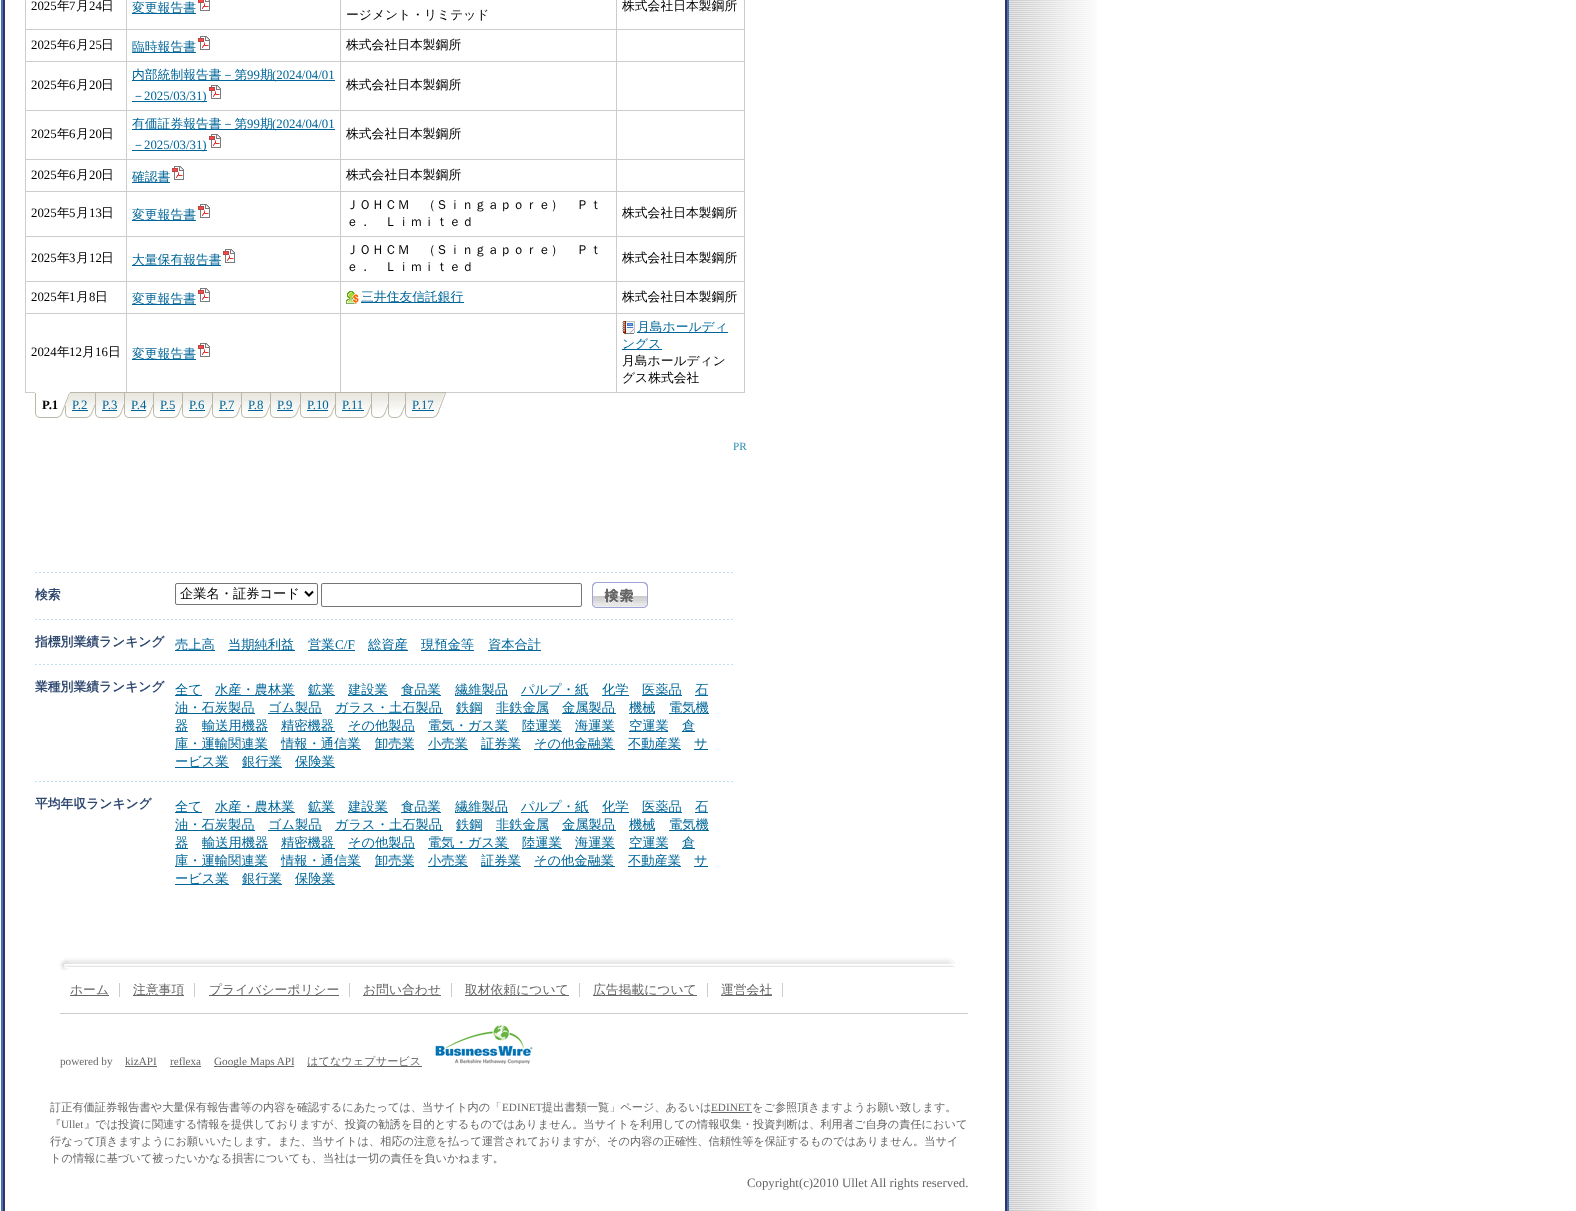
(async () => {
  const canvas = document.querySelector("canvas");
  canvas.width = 1576;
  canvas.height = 1211;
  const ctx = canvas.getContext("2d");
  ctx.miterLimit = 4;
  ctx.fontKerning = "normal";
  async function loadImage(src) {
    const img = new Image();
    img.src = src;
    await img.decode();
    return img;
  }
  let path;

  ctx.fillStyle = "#ffffff";
  ctx.fillRect(0, 0, 1576, 1211);
  ctx.drawImage(await loadImage("img/1.png"), 1009, 0, 88, 1211);
  ctx.drawImage(await loadImage("img/2.png"), 1, 0, 1008, 1211);
  for (const [x, y, w, h, color] of [
    [744, 0, 1, 393, "#cccccc"],
    [25, 29, 719, 1, "#cccccc"],
    [25, 0, 1, 30, "#cccccc"],
    [126, 0, 1, 30, "#cccccc"],
    [132, 13, 64, 1, "#006699"],
  ]) {
    ctx.fillStyle = color;
    ctx.fillRect(x, y, w, h);
  }
  ctx.drawImage(await loadImage("img/3.png"), 198, 0, 12, 11);
  for (const [x, y, w, h, color] of [
    [340, 0, 1, 30, "#cccccc"],
    [616, 0, 1, 30, "#cccccc"],
    [25, 61, 719, 1, "#cccccc"],
    [25, 30, 1, 32, "#cccccc"],
    [126, 30, 1, 32, "#cccccc"],
    [132, 52, 64, 1, "#006699"],
  ]) {
    ctx.fillStyle = color;
    ctx.fillRect(x, y, w, h);
  }
  ctx.drawImage(await loadImage("img/4.png"), 198, 36, 12, 14);
  for (const [x, y, w, h, color] of [
    [340, 30, 1, 32, "#cccccc"],
    [616, 30, 1, 32, "#cccccc"],
    [25, 110, 719, 1, "#cccccc"],
    [25, 62, 1, 49, "#cccccc"],
    [126, 62, 1, 49, "#cccccc"],
    [132, 80, 203, 1, "#006699"],
    [132, 101, 75, 1, "#006699"],
  ]) {
    ctx.fillStyle = color;
    ctx.fillRect(x, y, w, h);
  }
  ctx.drawImage(await loadImage("img/4.png"), 209, 85, 12, 14);
  for (const [x, y, w, h, color] of [
    [340, 62, 1, 49, "#cccccc"],
    [616, 62, 1, 49, "#cccccc"],
    [25, 159, 719, 1, "#cccccc"],
    [25, 111, 1, 49, "#cccccc"],
    [126, 111, 1, 49, "#cccccc"],
    [132, 129, 203, 1, "#006699"],
    [132, 150, 75, 1, "#006699"],
  ]) {
    ctx.fillStyle = color;
    ctx.fillRect(x, y, w, h);
  }
  ctx.drawImage(await loadImage("img/4.png"), 209, 134, 12, 14);
  for (const [x, y, w, h, color] of [
    [340, 111, 1, 49, "#cccccc"],
    [616, 111, 1, 49, "#cccccc"],
    [25, 191, 719, 1, "#cccccc"],
    [25, 160, 1, 32, "#cccccc"],
    [126, 160, 1, 32, "#cccccc"],
    [132, 182, 38, 1, "#006699"],
  ]) {
    ctx.fillStyle = color;
    ctx.fillRect(x, y, w, h);
  }
  ctx.drawImage(await loadImage("img/4.png"), 172, 166, 12, 14);
  for (const [x, y, w, h, color] of [
    [340, 160, 1, 32, "#cccccc"],
    [616, 160, 1, 32, "#cccccc"],
    [25, 236, 719, 1, "#cccccc"],
    [25, 192, 1, 45, "#cccccc"],
    [126, 192, 1, 45, "#cccccc"],
    [132, 220, 64, 1, "#006699"],
  ]) {
    ctx.fillStyle = color;
    ctx.fillRect(x, y, w, h);
  }
  ctx.drawImage(await loadImage("img/4.png"), 198, 204, 12, 14);
  for (const [x, y, w, h, color] of [
    [340, 192, 1, 45, "#cccccc"],
    [616, 192, 1, 45, "#cccccc"],
    [25, 281, 719, 1, "#cccccc"],
    [25, 237, 1, 45, "#cccccc"],
    [126, 237, 1, 45, "#cccccc"],
    [132, 265, 89, 1, "#006699"],
  ]) {
    ctx.fillStyle = color;
    ctx.fillRect(x, y, w, h);
  }
  ctx.drawImage(await loadImage("img/4.png"), 223, 249, 12, 14);
  for (const [x, y, w, h, color] of [
    [340, 237, 1, 45, "#cccccc"],
    [616, 237, 1, 45, "#cccccc"],
    [25, 313, 719, 1, "#cccccc"],
    [25, 282, 1, 32, "#cccccc"],
    [126, 282, 1, 111, "#cccccc"],
    [132, 304, 64, 1, "#006699"],
  ]) {
    ctx.fillStyle = color;
    ctx.fillRect(x, y, w, h);
  }
  ctx.drawImage(await loadImage("img/4.png"), 198, 288, 12, 14);
  ctx.fillStyle = "#cccccc";
  ctx.fillRect(340, 282, 1, 111);
  ctx.drawImage(await loadImage("img/5.png"), 346, 291, 13, 13);
  for (const [x, y, w, h, color] of [
    [361, 302, 103, 1, "#006699"],
    [616, 282, 1, 32, "#cccccc"],
    [25, 392, 10, 1, "#cccccc"],
    [25, 314, 1, 79, "#cccccc"],
    [132, 359, 64, 1, "#006699"],
  ]) {
    ctx.fillStyle = color;
    ctx.fillRect(x, y, w, h);
  }
  ctx.drawImage(await loadImage("img/4.png"), 198, 343, 12, 14);
  ctx.fillStyle = "#cccccc";
  ctx.fillRect(446, 392, 298, 1);
  ctx.fillRect(616, 314, 1, 79);
  ctx.drawImage(await loadImage("img/6.png"), 622, 321, 13, 13);
  ctx.fillStyle = "#006699";
  ctx.fillRect(637, 332, 91, 1);
  ctx.fillRect(622, 349, 40, 1);
  ctx.drawImage(await loadImage("img/10.png"), 65, 396, 5, 22);
  ctx.drawImage(await loadImage("img/7.png"), 40, 393, 30, 25);
  ctx.fillStyle = "#bbb8a9";
  ctx.fillRect(65, 392, 381, 1);
  ctx.fillStyle = "#ffffff";
  ctx.fillRect(65, 392, 5, 1);
  ctx.drawImage(await loadImage("img/8.png"), 35, 393, 5, 25);
  ctx.drawImage(await loadImage("img/9.png"), 70, 393, 25, 25);
  ctx.fillStyle = "#006699";
  ctx.fillRect(72, 410, 16, 1);
  ctx.drawImage(await loadImage("img/11.png"), 100, 393, 24, 25);
  ctx.drawImage(await loadImage("img/12.png"), 95, 393, 5, 25);
  ctx.fillRect(102, 410, 15, 1);
  ctx.drawImage(await loadImage("img/11.png"), 129, 393, 24, 25);
  ctx.drawImage(await loadImage("img/12.png"), 124, 393, 5, 25);
  ctx.fillRect(131, 410, 15, 1);
  ctx.drawImage(await loadImage("img/11.png"), 158, 393, 24, 25);
  ctx.drawImage(await loadImage("img/12.png"), 153, 393, 5, 25);
  ctx.fillRect(160, 410, 15, 1);
  ctx.drawImage(await loadImage("img/9.png"), 187, 393, 25, 25);
  ctx.drawImage(await loadImage("img/12.png"), 182, 393, 5, 25);
  ctx.fillRect(189, 410, 16, 1);
  ctx.drawImage(await loadImage("img/11.png"), 217, 393, 24, 25);
  ctx.drawImage(await loadImage("img/12.png"), 212, 393, 5, 25);
  ctx.fillRect(219, 410, 15, 1);
  ctx.drawImage(await loadImage("img/11.png"), 246, 393, 24, 25);
  ctx.drawImage(await loadImage("img/12.png"), 241, 393, 5, 25);
  ctx.fillRect(248, 410, 15, 1);
  ctx.drawImage(await loadImage("img/9.png"), 275, 393, 25, 25);
  ctx.drawImage(await loadImage("img/12.png"), 270, 393, 5, 25);
  ctx.fillRect(277, 410, 16, 1);
  ctx.drawImage(await loadImage("img/13.png"), 305, 393, 30, 25);
  ctx.drawImage(await loadImage("img/12.png"), 300, 393, 5, 25);
  ctx.fillRect(307, 410, 21, 1);
  ctx.drawImage(await loadImage("img/14.png"), 340, 393, 31, 25);
  ctx.drawImage(await loadImage("img/12.png"), 335, 393, 5, 25);
  ctx.fillRect(342, 410, 22, 1);
  ctx.drawImage(await loadImage("img/15.png"), 376, 393, 12, 25);
  ctx.drawImage(await loadImage("img/12.png"), 371, 393, 5, 25);
  ctx.drawImage(await loadImage("img/15.png"), 393, 393, 12, 25);
  ctx.drawImage(await loadImage("img/12.png"), 388, 393, 5, 25);
  ctx.drawImage(await loadImage("img/16.png"), 410, 393, 36, 25);
  ctx.drawImage(await loadImage("img/12.png"), 405, 393, 5, 25);
  ctx.fillRect(412, 410, 22, 1);
  ctx.drawImage(await loadImage("img/17.png"), 35, 572, 698, 1);
  ctx.beginPath();
  ctx.roundRect(175.5, 583.5, 142, 21, 1.5);
  ctx.strokeStyle = "#767676";
  ctx.stroke();
  path = new Path2D("M305 591.5L309 595.5L313 591.5");
  ctx.strokeStyle = "#000000";
  ctx.lineWidth = 2;
  ctx.stroke(path);
  ctx.beginPath();
  ctx.roundRect(321.5, 583.5, 260, 23, 1.5);
  ctx.strokeStyle = "#767676";
  ctx.lineWidth = 1;
  ctx.stroke();
  ctx.drawImage(await loadImage("img/18.png"), 592, 582, 56, 26);
  ctx.drawImage(await loadImage("img/17.png"), 35, 619, 698, 1);
  for (const [x, y, w, h, color] of [
    [175, 650, 40, 1, "#006699"],
    [228, 650, 67, 1, "#006699"],
    [308, 650, 47, 1, "#006699"],
    [368, 650, 40, 1, "#006699"],
    [421, 650, 53, 1, "#006699"],
    [488, 650, 53, 1, "#006699"],
  ]) {
    ctx.fillStyle = color;
    ctx.fillRect(x, y, w, h);
  }
  ctx.drawImage(await loadImage("img/17.png"), 35, 664, 698, 1);
  for (const [x, y, w, h, color] of [
    [175, 695, 27, 1, "#006699"],
    [215, 695, 80, 1, "#006699"],
    [308, 695, 27, 1, "#006699"],
    [348, 695, 40, 1, "#006699"],
    [401, 695, 40, 1, "#006699"],
    [455, 695, 53, 1, "#006699"],
    [521, 695, 68, 1, "#006699"],
    [602, 695, 27, 1, "#006699"],
    [642, 695, 40, 1, "#006699"],
    [695, 695, 13, 1, "#006699"],
    [175, 713, 80, 1, "#006699"],
    [268, 713, 54, 1, "#006699"],
    [335, 713, 108, 1, "#006699"],
    [456, 713, 26, 1, "#006699"],
    [496, 713, 53, 1, "#006699"],
    [562, 713, 54, 1, "#006699"],
    [629, 713, 26, 1, "#006699"],
    [669, 713, 40, 1, "#006699"],
    [175, 731, 13, 1, "#006699"],
    [202, 731, 66, 1, "#006699"],
    [281, 731, 54, 1, "#006699"],
    [348, 731, 67, 1, "#006699"],
    [428, 731, 81, 1, "#006699"],
    [522, 731, 40, 1, "#006699"],
    [575, 731, 40, 1, "#006699"],
    [629, 731, 39, 1, "#006699"],
    [682, 731, 13, 1, "#006699"],
    [175, 749, 93, 1, "#006699"],
    [281, 749, 80, 1, "#006699"],
    [375, 749, 39, 1, "#006699"],
    [428, 749, 40, 1, "#006699"],
    [481, 749, 40, 1, "#006699"],
    [534, 749, 81, 1, "#006699"],
    [628, 749, 53, 1, "#006699"],
    [694, 749, 14, 1, "#006699"],
    [175, 767, 54, 1, "#006699"],
    [242, 767, 40, 1, "#006699"],
    [295, 767, 40, 1, "#006699"],
  ]) {
    ctx.fillStyle = color;
    ctx.fillRect(x, y, w, h);
  }
  ctx.drawImage(await loadImage("img/17.png"), 35, 781, 698, 1);
  for (const [x, y, w, h, color] of [
    [175, 812, 27, 1, "#006699"],
    [215, 812, 80, 1, "#006699"],
    [308, 812, 27, 1, "#006699"],
    [348, 812, 40, 1, "#006699"],
    [401, 812, 40, 1, "#006699"],
    [455, 812, 53, 1, "#006699"],
    [521, 812, 68, 1, "#006699"],
    [602, 812, 27, 1, "#006699"],
    [642, 812, 40, 1, "#006699"],
    [695, 812, 13, 1, "#006699"],
    [175, 830, 80, 1, "#006699"],
    [268, 830, 54, 1, "#006699"],
    [335, 830, 108, 1, "#006699"],
    [456, 830, 26, 1, "#006699"],
    [496, 830, 53, 1, "#006699"],
    [562, 830, 54, 1, "#006699"],
    [629, 830, 26, 1, "#006699"],
    [669, 830, 40, 1, "#006699"],
    [175, 848, 13, 1, "#006699"],
    [202, 848, 66, 1, "#006699"],
    [281, 848, 54, 1, "#006699"],
    [348, 848, 67, 1, "#006699"],
    [428, 848, 81, 1, "#006699"],
    [522, 848, 40, 1, "#006699"],
    [575, 848, 40, 1, "#006699"],
    [629, 848, 39, 1, "#006699"],
    [682, 848, 13, 1, "#006699"],
    [175, 866, 93, 1, "#006699"],
    [281, 866, 80, 1, "#006699"],
    [375, 866, 39, 1, "#006699"],
    [428, 866, 40, 1, "#006699"],
    [481, 866, 40, 1, "#006699"],
    [534, 866, 81, 1, "#006699"],
    [628, 866, 53, 1, "#006699"],
    [694, 866, 14, 1, "#006699"],
    [175, 884, 54, 1, "#006699"],
    [242, 884, 40, 1, "#006699"],
    [295, 884, 40, 1, "#006699"],
  ]) {
    ctx.fillStyle = color;
    ctx.fillRect(x, y, w, h);
  }
  ctx.drawImage(await loadImage("img/19.png"), 59, 958, 896, 13);
  for (const [x, y, w, h, color] of [
    [60, 1013, 908, 1, "#cccccc"],
    [119, 983, 1, 14, "#cccccc"],
    [70, 995, 39, 1, "#666666"],
    [194, 983, 1, 14, "#cccccc"],
    [133, 995, 51, 1, "#666666"],
    [349, 983, 1, 14, "#cccccc"],
    [209, 995, 130, 1, "#666666"],
    [451, 983, 1, 14, "#cccccc"],
    [363, 995, 78, 1, "#666666"],
    [579, 983, 1, 14, "#cccccc"],
    [465, 995, 104, 1, "#666666"],
    [707, 983, 1, 14, "#cccccc"],
    [593, 995, 104, 1, "#666666"],
    [782, 983, 1, 14, "#cccccc"],
    [721, 995, 51, 1, "#666666"],
    [125, 1066, 32, 1, "#666666"],
    [170, 1066, 31, 1, "#666666"],
    [214, 1066, 80, 1, "#666666"],
    [307, 1066, 115, 1, "#666666"],
  ]) {
    ctx.fillStyle = color;
    ctx.fillRect(x, y, w, h);
  }
  ctx.drawImage(await loadImage("img/20.png"), 435, 1025, 98, 40);
  ctx.fillRect(711, 1112, 41, 1);
  ctx.font = "12.8px Liberation Serif";
  ctx.fillStyle = "#000000";
  ctx.fillText("2025", 31, 10);
  ctx.font = "500 12.8px WenQuanYi Zen Hei";
  ctx.fillText("年", 57, 10);
  ctx.font = "12.8px Liberation Serif";
  ctx.fillText("7", 69, 10);
  ctx.font = "500 12.8px WenQuanYi Zen Hei";
  ctx.fillText("月", 76, 10);
  ctx.font = "12.8px Liberation Serif";
  ctx.fillText("24", 89, 10);
  ctx.font = "500 12.8px WenQuanYi Zen Hei";
  ctx.fillText("日", 101, 10);
  ctx.fillStyle = "#006699";
  ctx.fillText("変更報告書", 132, 12);
  ctx.fillStyle = "#000000";
  ctx.fillText("ージメント・リミテッド", 346, 19);
  ctx.fillText("株式会社日本製鋼所", 622, 10);
  ctx.font = "12.8px Liberation Serif";
  ctx.fillText("2025", 31, 49);
  ctx.font = "500 12.8px WenQuanYi Zen Hei";
  ctx.fillText("年", 57, 49);
  ctx.font = "12.8px Liberation Serif";
  ctx.fillText("6", 69, 49);
  ctx.font = "500 12.8px WenQuanYi Zen Hei";
  ctx.fillText("月", 76, 49);
  ctx.font = "12.8px Liberation Serif";
  ctx.fillText("25", 89, 49);
  ctx.font = "500 12.8px WenQuanYi Zen Hei";
  ctx.fillText("日", 101, 49);
  ctx.fillStyle = "#006699";
  ctx.fillText("臨時報告書", 132, 51);
  ctx.fillStyle = "#000000";
  ctx.fillText("株式会社日本製鋼所", 346, 49);
  ctx.font = "12.8px Liberation Serif";
  ctx.fillText("2025", 31, 89);
  ctx.font = "500 12.8px WenQuanYi Zen Hei";
  ctx.fillText("年", 57, 89);
  ctx.font = "12.8px Liberation Serif";
  ctx.fillText("6", 69, 89);
  ctx.font = "500 12.8px WenQuanYi Zen Hei";
  ctx.fillText("月", 76, 89);
  ctx.font = "12.8px Liberation Serif";
  ctx.fillText("20", 89, 89);
  ctx.font = "500 12.8px WenQuanYi Zen Hei";
  ctx.fillText("日", 101, 89);
  ctx.fillStyle = "#006699";
  ctx.fillText("内部統制報告書－第", 132, 79);
  ctx.font = "12.8px Liberation Serif";
  ctx.fillText("99", 247, 79);
  ctx.font = "500 12.8px WenQuanYi Zen Hei";
  ctx.fillText("期", 260, 79);
  ctx.font = "12.8px Liberation Serif";
  ctx.fillText("(2024/04/01", 272, 79);
  ctx.font = "500 12.8px WenQuanYi Zen Hei";
  ctx.fillText("－", 132, 100);
  ctx.font = "12.8px Liberation Serif";
  ctx.fillText("2025/03/31)", 144, 100);
  ctx.font = "500 12.8px WenQuanYi Zen Hei";
  ctx.fillStyle = "#000000";
  ctx.fillText("株式会社日本製鋼所", 346, 89);
  ctx.font = "12.8px Liberation Serif";
  ctx.fillText("2025", 31, 138);
  ctx.font = "500 12.8px WenQuanYi Zen Hei";
  ctx.fillText("年", 57, 138);
  ctx.font = "12.8px Liberation Serif";
  ctx.fillText("6", 69, 138);
  ctx.font = "500 12.8px WenQuanYi Zen Hei";
  ctx.fillText("月", 76, 138);
  ctx.font = "12.8px Liberation Serif";
  ctx.fillText("20", 89, 138);
  ctx.font = "500 12.8px WenQuanYi Zen Hei";
  ctx.fillText("日", 101, 138);
  ctx.fillStyle = "#006699";
  ctx.fillText("有価証券報告書－第", 132, 128);
  ctx.font = "12.8px Liberation Serif";
  ctx.fillText("99", 247, 128);
  ctx.font = "500 12.8px WenQuanYi Zen Hei";
  ctx.fillText("期", 260, 128);
  ctx.font = "12.8px Liberation Serif";
  ctx.fillText("(2024/04/01", 272, 128);
  ctx.font = "500 12.8px WenQuanYi Zen Hei";
  ctx.fillText("－", 132, 149);
  ctx.font = "12.8px Liberation Serif";
  ctx.fillText("2025/03/31)", 144, 149);
  ctx.font = "500 12.8px WenQuanYi Zen Hei";
  ctx.fillStyle = "#000000";
  ctx.fillText("株式会社日本製鋼所", 346, 138);
  ctx.font = "12.8px Liberation Serif";
  ctx.fillText("2025", 31, 179);
  ctx.font = "500 12.8px WenQuanYi Zen Hei";
  ctx.fillText("年", 57, 179);
  ctx.font = "12.8px Liberation Serif";
  ctx.fillText("6", 69, 179);
  ctx.font = "500 12.8px WenQuanYi Zen Hei";
  ctx.fillText("月", 76, 179);
  ctx.font = "12.8px Liberation Serif";
  ctx.fillText("20", 89, 179);
  ctx.font = "500 12.8px WenQuanYi Zen Hei";
  ctx.fillText("日", 101, 179);
  ctx.fillStyle = "#006699";
  ctx.fillText("確認書", 132, 181);
  ctx.fillStyle = "#000000";
  ctx.fillText("株式会社日本製鋼所", 346, 179);
  ctx.font = "12.8px Liberation Serif";
  ctx.fillText("2025", 31, 217);
  ctx.font = "500 12.8px WenQuanYi Zen Hei";
  ctx.fillText("年", 57, 217);
  ctx.font = "12.8px Liberation Serif";
  ctx.fillText("5", 69, 217);
  ctx.font = "500 12.8px WenQuanYi Zen Hei";
  ctx.fillText("月", 76, 217);
  ctx.font = "12.8px Liberation Serif";
  ctx.fillText("13", 89, 217);
  ctx.font = "500 12.8px WenQuanYi Zen Hei";
  ctx.fillText("日", 101, 217);
  ctx.fillStyle = "#006699";
  ctx.fillText("変更報告書", 132, 219);
  ctx.fillStyle = "#000000";
  for (const [text, x, y] of [
    ["ＪＯＨＣＭ　（Ｓｉｎｇａｐｏｒｅ）　Ｐｔ", 346, 209],
    ["ｅ．　Ｌｉｍｉｔｅｄ", 346, 226],
    ["株式会社日本製鋼所", 622, 217],
  ]) {
    ctx.fillText(text, x, y);
  }
  ctx.font = "12.8px Liberation Serif";
  ctx.fillText("2025", 31, 262);
  ctx.font = "500 12.8px WenQuanYi Zen Hei";
  ctx.fillText("年", 57, 262);
  ctx.font = "12.8px Liberation Serif";
  ctx.fillText("3", 69, 262);
  ctx.font = "500 12.8px WenQuanYi Zen Hei";
  ctx.fillText("月", 76, 262);
  ctx.font = "12.8px Liberation Serif";
  ctx.fillText("12", 89, 262);
  ctx.font = "500 12.8px WenQuanYi Zen Hei";
  ctx.fillText("日", 101, 262);
  ctx.fillStyle = "#006699";
  ctx.fillText("大量保有報告書", 132, 264);
  ctx.fillStyle = "#000000";
  for (const [text, x, y] of [
    ["ＪＯＨＣＭ　（Ｓｉｎｇａｐｏｒｅ）　Ｐｔ", 346, 254],
    ["ｅ．　Ｌｉｍｉｔｅｄ", 346, 271],
    ["株式会社日本製鋼所", 622, 262],
  ]) {
    ctx.fillText(text, x, y);
  }
  ctx.font = "12.8px Liberation Serif";
  ctx.fillText("2025", 31, 301);
  ctx.font = "500 12.8px WenQuanYi Zen Hei";
  ctx.fillText("年", 57, 301);
  ctx.font = "12.8px Liberation Serif";
  ctx.fillText("1", 69, 301);
  ctx.font = "500 12.8px WenQuanYi Zen Hei";
  ctx.fillText("月", 76, 301);
  ctx.font = "12.8px Liberation Serif";
  ctx.fillText("8", 89, 301);
  ctx.font = "500 12.8px WenQuanYi Zen Hei";
  ctx.fillText("日", 95, 301);
  ctx.fillStyle = "#006699";
  ctx.fillText("変更報告書", 132, 303);
  ctx.fillText("三井住友信託銀行", 361, 301);
  ctx.fillStyle = "#000000";
  ctx.fillText("株式会社日本製鋼所", 622, 301);
  ctx.font = "12.8px Liberation Serif";
  ctx.fillText("2024", 31, 356);
  ctx.font = "500 12.8px WenQuanYi Zen Hei";
  ctx.fillText("年", 57, 356);
  ctx.font = "12.8px Liberation Serif";
  ctx.fillText("12", 69, 356);
  ctx.font = "500 12.8px WenQuanYi Zen Hei";
  ctx.fillText("月", 82, 356);
  ctx.font = "12.8px Liberation Serif";
  ctx.fillText("16", 95, 356);
  ctx.font = "500 12.8px WenQuanYi Zen Hei";
  ctx.fillText("日", 108, 356);
  ctx.fillStyle = "#006699";
  for (const [text, x, y] of [
    ["変更報告書", 132, 358],
    ["月島ホールディ", 637, 331],
    ["ングス", 622, 348],
  ]) {
    ctx.fillText(text, x, y);
  }
  ctx.fillStyle = "#000000";
  ctx.fillText("月島ホールディン", 622, 365);
  ctx.fillText("グス株式会社", 622, 382);
  ctx.font = "bold 12.8px Liberation Serif";
  ctx.fillText("P.1", 42, 409);
  ctx.font = "12.8px Liberation Serif";
  ctx.fillStyle = "#006699";
  for (const [text, x, y] of [
    ["P.2", 72, 409],
    ["P.3", 102, 409],
    ["P.4", 131, 409],
    ["P.5", 160, 409],
    ["P.6", 189, 409],
    ["P.7", 219, 409],
    ["P.8", 248, 409],
    ["P.9", 277, 409],
    ["P.10", 307, 409],
    ["P.11", 342, 409],
    ["P.17", 412, 409],
  ]) {
    ctx.fillText(text, x, y);
  }
  ctx.font = "11.2px Liberation Serif";
  ctx.fillStyle = "#2b8bb4";
  ctx.fillText("PR", 733, 450);
  ctx.font = "bold 12.8px WenQuanYi Zen Hei";
  ctx.fillStyle = "#2d476f";
  ctx.fillText("検索", 35, 599);
  ctx.font = "500 13.25px WenQuanYi Zen Hei";
  ctx.fillStyle = "#000000";
  ctx.fillText("企業名・証券コード", 180, 598);
  ctx.font = "bold 12.8px WenQuanYi Zen Hei";
  ctx.fillStyle = "#2d476f";
  ctx.fillText("指標別業績ランキング", 35, 646);
  ctx.font = "500 13.25px WenQuanYi Zen Hei";
  ctx.fillStyle = "#006699";
  for (const [text, x, y] of [
    ["売上高", 175, 649],
    ["当期純利益", 228, 649],
    ["営業", 308, 649],
  ]) {
    ctx.fillText(text, x, y);
  }
  ctx.font = "13.25px Liberation Serif";
  ctx.fillText("C/F", 335, 649);
  ctx.font = "500 13.25px WenQuanYi Zen Hei";
  for (const [text, x, y] of [
    ["総資産", 368, 649],
    ["現預金等", 421, 649],
    ["資本合計", 488, 649],
  ]) {
    ctx.fillText(text, x, y);
  }
  ctx.font = "bold 12.8px WenQuanYi Zen Hei";
  ctx.fillStyle = "#2d476f";
  ctx.fillText("業種別業績ランキング", 35, 691);
  ctx.font = "500 13.25px WenQuanYi Zen Hei";
  ctx.fillStyle = "#006699";
  for (const [text, x, y] of [
    ["全て", 175, 694],
    ["水産・農林業", 215, 694],
    ["鉱業", 308, 694],
    ["建設業", 348, 694],
    ["食品業", 401, 694],
    ["繊維製品", 455, 694],
    ["パルプ・紙", 521, 694],
    ["化学", 602, 694],
    ["医薬品", 642, 694],
    ["石", 695, 694],
    ["油・石炭製品", 175, 712],
    ["ゴム製品", 268, 712],
    ["ガラス・土石製品", 335, 712],
    ["鉄鋼", 456, 712],
    ["非鉄金属", 496, 712],
    ["金属製品", 562, 712],
    ["機械", 629, 712],
    ["電気機", 669, 712],
    ["器", 175, 730],
    ["輸送用機器", 202, 730],
    ["精密機器", 281, 730],
    ["その他製品", 348, 730],
    ["電気・ガス業", 428, 730],
    ["陸運業", 522, 730],
    ["海運業", 575, 730],
    ["空運業", 629, 730],
    ["倉", 682, 730],
    ["庫・運輸関連業", 175, 748],
    ["情報・通信業", 281, 748],
    ["卸売業", 375, 748],
    ["小売業", 428, 748],
    ["証券業", 481, 748],
    ["その他金融業", 534, 748],
    ["不動産業", 628, 748],
    ["サ", 694, 748],
    ["ービス業", 175, 766],
    ["銀行業", 242, 766],
    ["保険業", 295, 766],
  ]) {
    ctx.fillText(text, x, y);
  }
  ctx.font = "bold 12.8px WenQuanYi Zen Hei";
  ctx.fillStyle = "#2d476f";
  ctx.fillText("平均年収ランキング", 35, 808);
  ctx.font = "500 13.25px WenQuanYi Zen Hei";
  ctx.fillStyle = "#006699";
  for (const [text, x, y] of [
    ["全て", 175, 811],
    ["水産・農林業", 215, 811],
    ["鉱業", 308, 811],
    ["建設業", 348, 811],
    ["食品業", 401, 811],
    ["繊維製品", 455, 811],
    ["パルプ・紙", 521, 811],
    ["化学", 602, 811],
    ["医薬品", 642, 811],
    ["石", 695, 811],
    ["油・石炭製品", 175, 829],
    ["ゴム製品", 268, 829],
    ["ガラス・土石製品", 335, 829],
    ["鉄鋼", 456, 829],
    ["非鉄金属", 496, 829],
    ["金属製品", 562, 829],
    ["機械", 629, 829],
    ["電気機", 669, 829],
    ["器", 175, 847],
    ["輸送用機器", 202, 847],
    ["精密機器", 281, 847],
    ["その他製品", 348, 847],
    ["電気・ガス業", 428, 847],
    ["陸運業", 522, 847],
    ["海運業", 575, 847],
    ["空運業", 629, 847],
    ["倉", 682, 847],
    ["庫・運輸関連業", 175, 865],
    ["情報・通信業", 281, 865],
    ["卸売業", 375, 865],
    ["小売業", 428, 865],
    ["証券業", 481, 865],
    ["その他金融業", 534, 865],
    ["不動産業", 628, 865],
    ["サ", 694, 865],
    ["ービス業", 175, 883],
    ["銀行業", 242, 883],
    ["保険業", 295, 883],
  ]) {
    ctx.fillText(text, x, y);
  }
  ctx.font = "500 12.8px WenQuanYi Zen Hei";
  ctx.fillStyle = "#666666";
  for (const [text, x, y] of [
    ["ホーム", 70, 994],
    ["注意事項", 133, 994],
    ["プライバシーポリシー", 209, 994],
    ["お問い合わせ", 363, 994],
    ["取材依頼について", 465, 994],
    ["広告掲載について", 593, 994],
    ["運営会社", 721, 994],
  ]) {
    ctx.fillText(text, x, y);
  }
  ctx.font = "11.2px Liberation Serif";
  for (const [text, x, y] of [
    ["powered by", 60, 1065],
    ["kizAPI", 125, 1065],
    ["reflexa", 170, 1065],
    ["Google Maps API", 214, 1065],
  ]) {
    ctx.fillText(text, x, y);
  }
  ctx.font = "500 11.2px WenQuanYi Zen Hei";
  ctx.fillText("はてなウェブサービス", 307, 1065);
  ctx.fillText("訂正有価証券報告書や大量保有報告書等の内容を確認するにあたっては、当サイト内の「", 50, 1111);
  ctx.font = "11.2px Liberation Serif";
  ctx.fillText("EDINET", 502, 1111);
  ctx.font = "500 11.2px WenQuanYi Zen Hei";
  ctx.fillText("提出書類一覧」ページ、あるいは", 542, 1111);
  ctx.font = "11.2px Liberation Serif";
  ctx.fillText("EDINET", 711, 1111);
  ctx.font = "500 11.2px WenQuanYi Zen Hei";
  ctx.fillText("をご参照頂きますようお願い致します。", 752, 1111);
  ctx.fillText("『", 50, 1128);
  ctx.font = "11.2px Liberation Serif";
  ctx.fillText("Ullet", 61, 1128);
  ctx.font = "500 11.2px WenQuanYi Zen Hei";
  for (const [text, x, y] of [
    ["』では投資に関連する情報を提供しておりますが、投資の勧誘を目的とするものではありません。当サイトを利用しての情報収集・投資判断は、利用者ご自身の責任において", 84, 1128],
    ["行なって頂きますようにお願いいたします。また、当サイトは、相応の注意を払って運営されておりますが、その内容の正確性、信頼性等を保証するものではありません。当サイ", 50, 1145],
    ["トの情報に基づいて被ったいかなる損害についても、当社は一切の責任を負いかねます。", 50, 1162],
  ]) {
    ctx.fillText(text, x, y);
  }
  ctx.font = "12.8px Liberation Serif";
  ctx.fillText("Copyright(c)2010 Ullet All rights reserved.", 747, 1187);
})();
